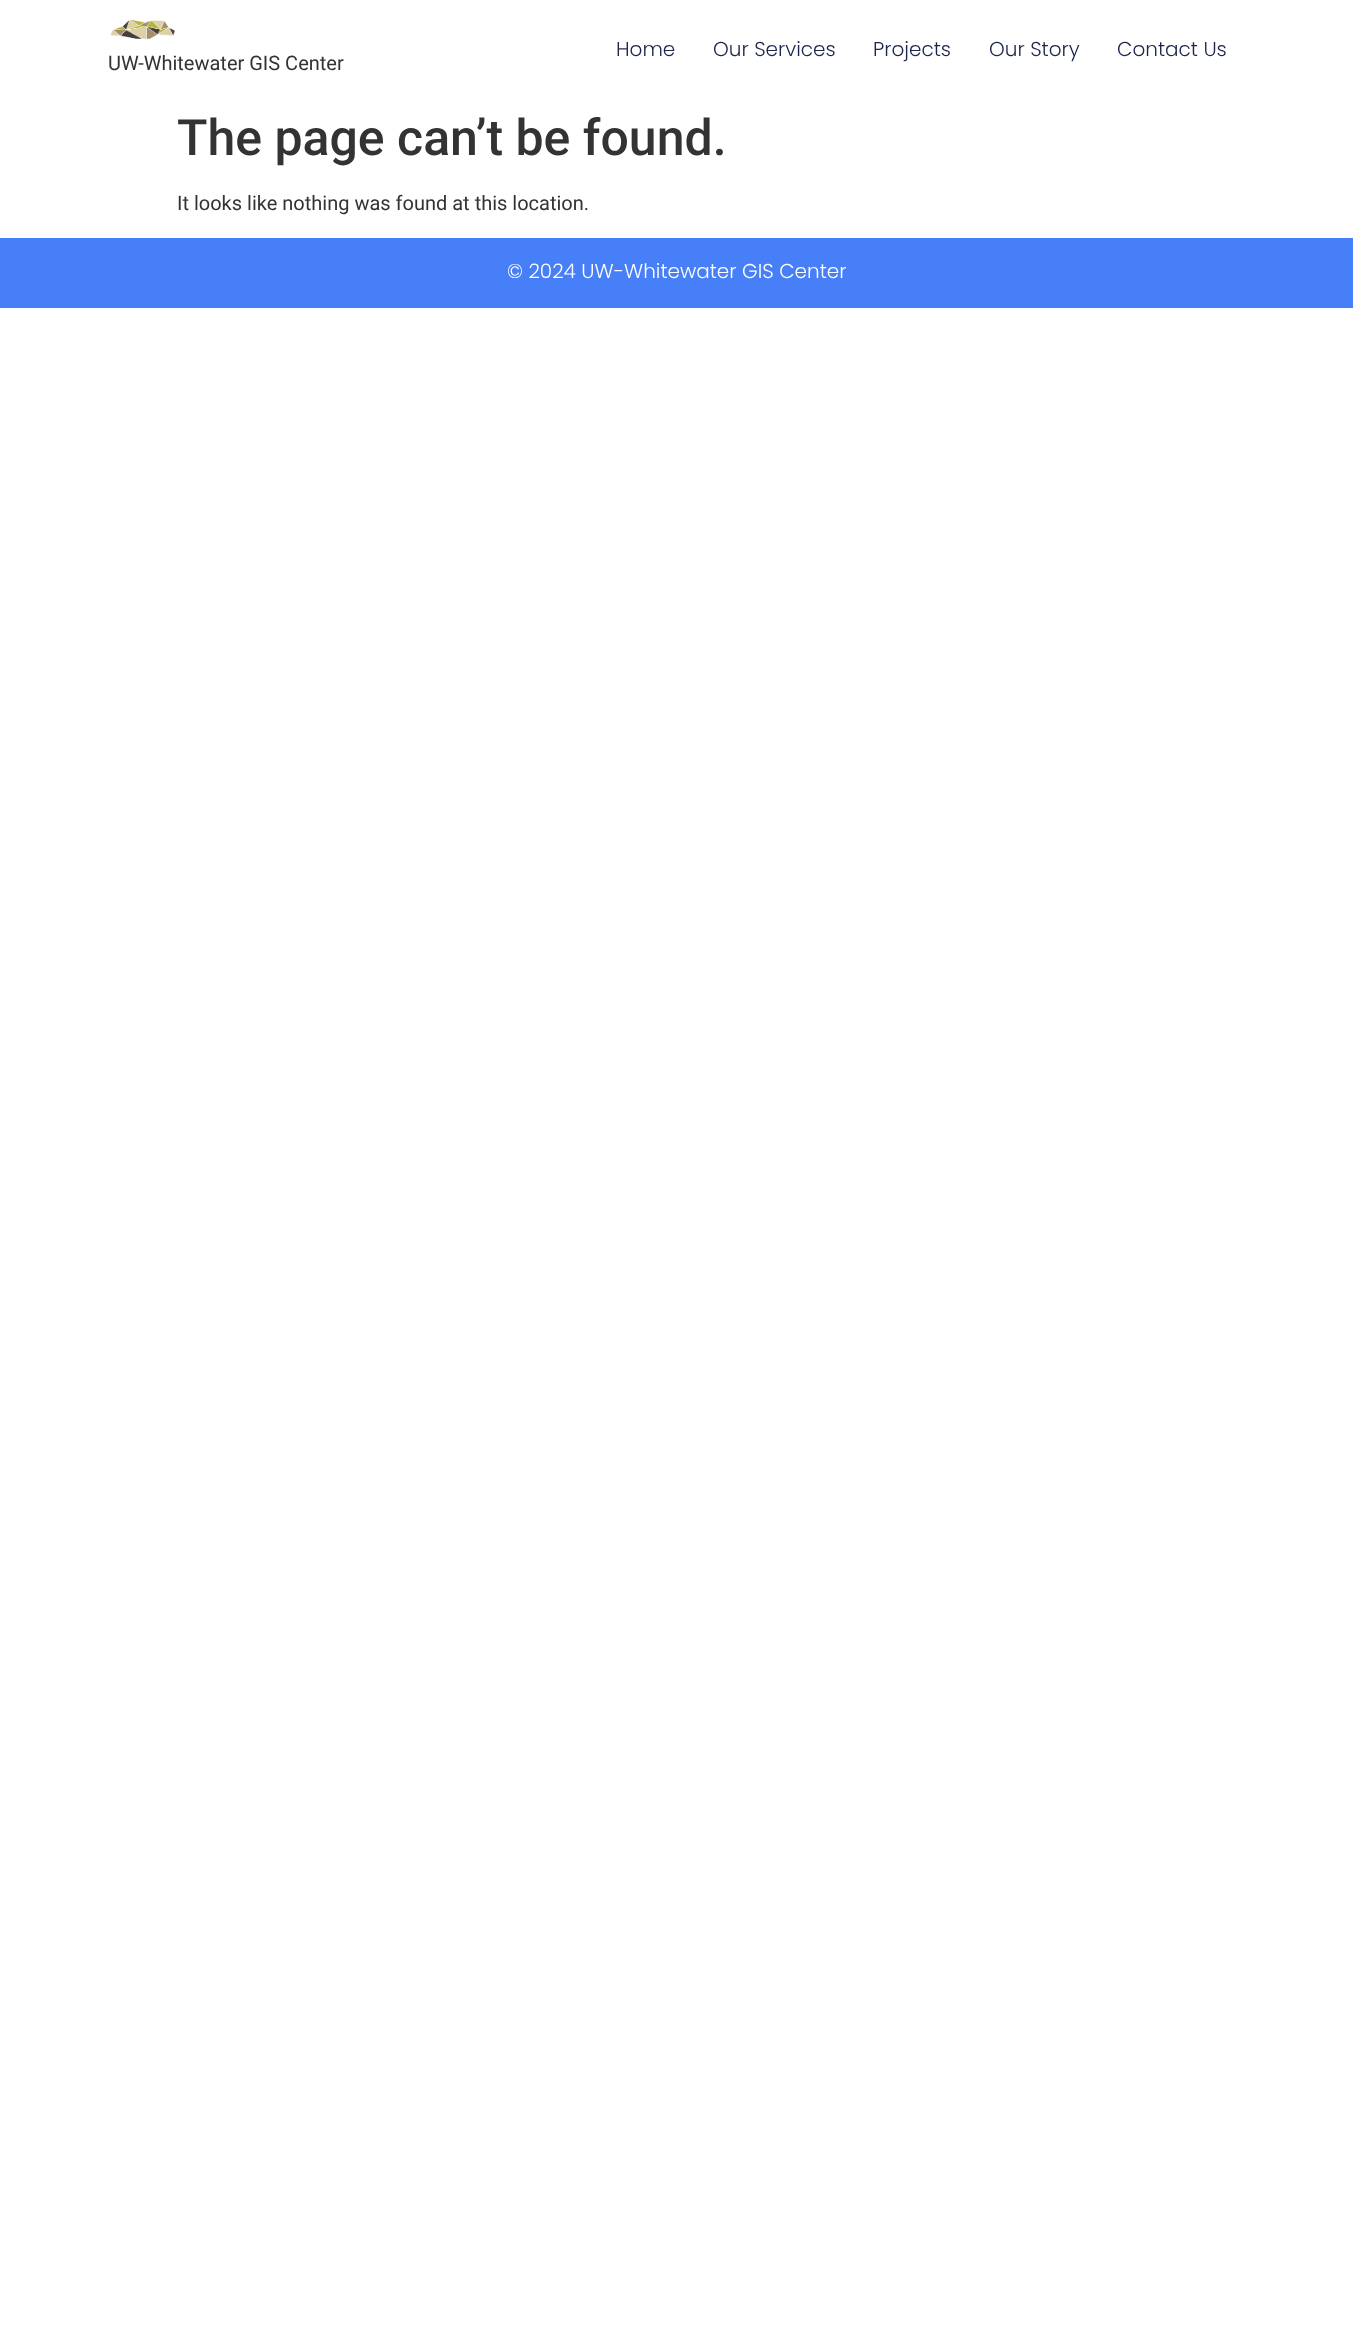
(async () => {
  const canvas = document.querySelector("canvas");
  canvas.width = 1353;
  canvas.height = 2333;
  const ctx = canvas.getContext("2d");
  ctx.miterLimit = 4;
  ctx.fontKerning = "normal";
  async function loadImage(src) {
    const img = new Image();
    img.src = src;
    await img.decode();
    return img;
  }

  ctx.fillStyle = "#ffffff";
  ctx.fillRect(0, 0, 1353, 2333);
  ctx.drawImage(await loadImage("img/1.png"), 110, 20, 65, 19);
  ctx.fillStyle = "#467ff7";
  ctx.fillRect(0, 238, 1353, 70);
  ctx.font = "20px Roboto";
  ctx.fillStyle = "#333333";
  ctx.fillText("UW-Whitewater GIS Center", 108, 70);
  ctx.font = "300 20px Poppins";
  ctx.fillStyle = "#1c244b";
  for (const [text, x, y] of [
    ["Home", 616, 56],
    ["Our Services", 713, 56],
    ["Projects", 873, 56],
    ["Our Story", 989, 56],
    ["Contact Us", 1117, 56],
  ]) {
    ctx.fillText(text, x, y);
  }
  ctx.font = "500 50px Roboto";
  ctx.fillStyle = "#333333";
  ctx.fillText("The page can’t be found.", 177, 155);
  ctx.font = "20px Roboto";
  ctx.fillText("It looks like nothing was found at this location.", 177, 210);
  ctx.font = "300 20px Poppins";
  ctx.fillStyle = "#ffffff";
  ctx.fillText("© 2024 UW-Whitewater GIS Center", 507, 278);
})();
